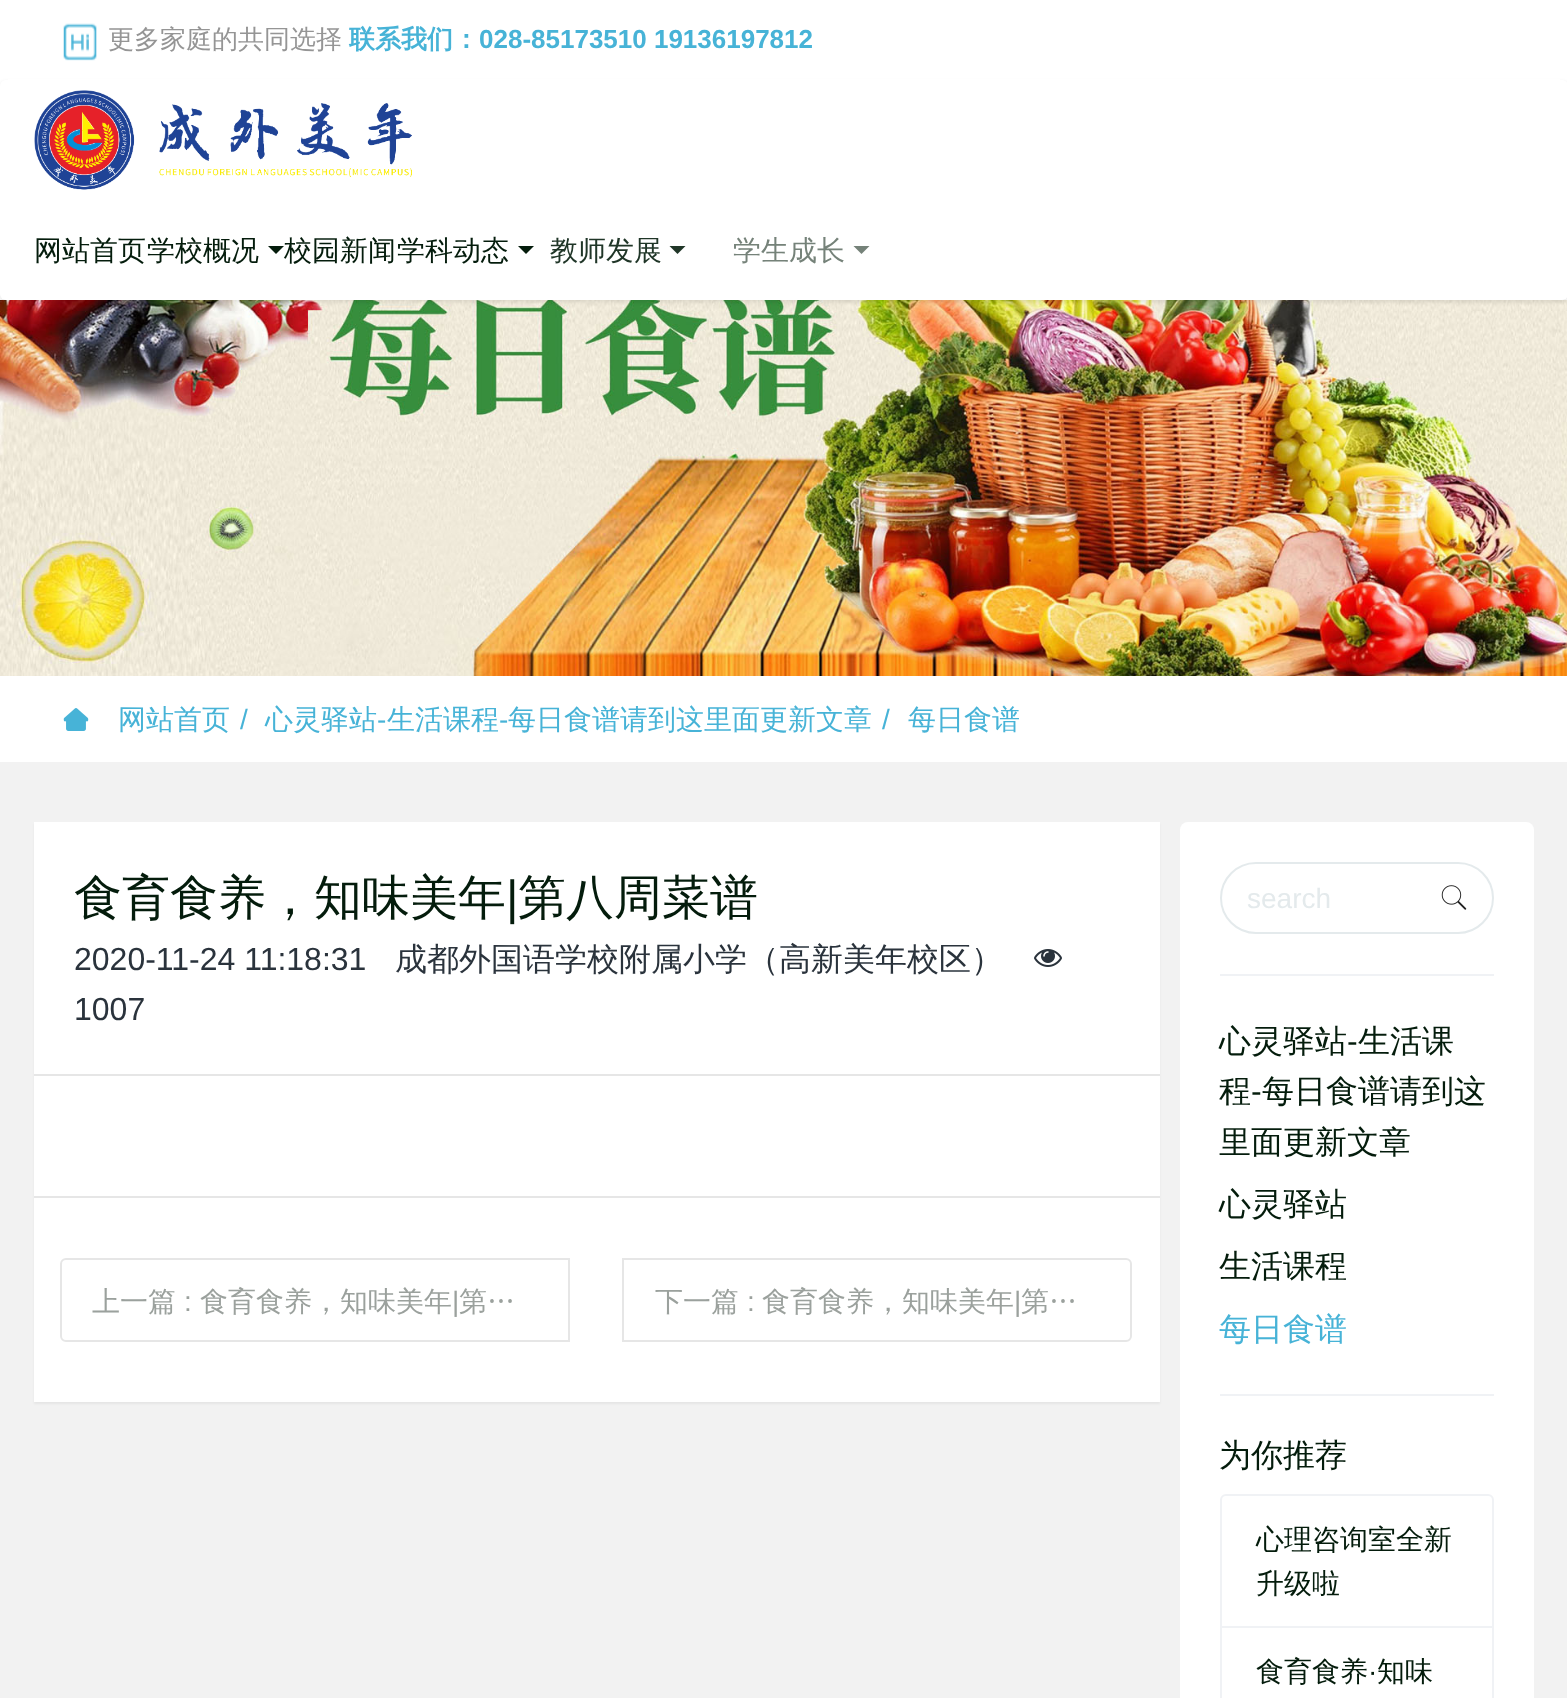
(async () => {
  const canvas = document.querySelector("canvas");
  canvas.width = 1567;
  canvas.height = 1698;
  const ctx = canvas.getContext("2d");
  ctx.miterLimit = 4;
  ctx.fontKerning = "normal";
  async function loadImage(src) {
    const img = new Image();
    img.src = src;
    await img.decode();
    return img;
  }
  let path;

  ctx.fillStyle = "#ffffff";
  ctx.fillRect(0, 0, 1567, 1698);
  ctx.drawImage(await loadImage("img/3.png"), 0, 300, 1567, 376);
  ctx.fillStyle = "rgba(0, 0, 0, 0.1)";
  ctx.filter = "blur(2px)";
  ctx.beginPath();
  ctx.roundRect(0, 82, 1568, 220, 6);
  ctx.fill();
  ctx.filter = "none";
  ctx.fillStyle = "#ffffff";
  ctx.fillRect(8, 79, 1552, 1);
  ctx.drawImage(await loadImage("img/1.png"), 63, 23, 34, 38);
  ctx.beginPath();
  ctx.roundRect(0, 80, 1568, 220, 6);
  ctx.fill();
  ctx.drawImage(await loadImage("img/2.png"), 34, 90, 378, 100);
  ctx.fillStyle = "#041c0c";
  path = new Path2D("M268 246H284L276 254Z");
  ctx.fill(path);
  path = new Path2D("M518 246H534L526 254Z");
  ctx.fill(path);
  ctx.fillStyle = "#203628";
  path = new Path2D("M669.5 246H685.5L677.5 254Z");
  ctx.fill(path);
  ctx.fillStyle = "#758279";
  path = new Path2D("M853.5 246H869.5L861.5 254Z");
  ctx.fill(path);
  ctx.drawImage(await loadImage("img/4.png"), 63, 708, 26, 23);
  ctx.fillStyle = "#f2f2f2";
  ctx.fillRect(0, 762, 1567, 936);
  ctx.fillStyle = "rgba(0, 0, 0, 0.05)";
  ctx.filter = "blur(1px)";
  ctx.beginPath();
  ctx.rect(34, 824, 1126, 580);
  ctx.fill();
  ctx.filter = "none";
  ctx.fillStyle = "#ffffff";
  ctx.fillRect(34, 822, 1126, 580);
  ctx.fillStyle = "#e6e6e6";
  ctx.fillRect(34, 1074, 1126, 2);
  ctx.drawImage(await loadImage("img/5.png"), 1034, 949, 28, 18);
  ctx.fillRect(34, 1196, 1126, 2);
  ctx.beginPath();
  ctx.roundRect(61, 1259, 508, 82, [5, 0, 0, 5]);
  ctx.strokeStyle = "#e6e6e6";
  ctx.lineWidth = 2;
  ctx.stroke();
  ctx.beginPath();
  ctx.roundRect(623, 1259, 508, 82, [0, 5, 5, 0]);
  ctx.stroke();
  ctx.fillStyle = "#ffffff";
  ctx.beginPath();
  ctx.roundRect(1180, 822, 354, 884, 8);
  ctx.fill();
  ctx.beginPath();
  ctx.roundRect(1221, 863, 272, 70, 35);
  ctx.strokeStyle = "#e4eaec";
  ctx.stroke();
  ctx.drawImage(await loadImage("img/6.png"), 1441, 885, 26, 25);
  ctx.fillStyle = "#f0f2f5";
  ctx.fillRect(1220, 974, 274, 2);
  ctx.fillRect(1220, 1394, 274, 2);
  ctx.beginPath();
  ctx.roundRect(1221, 1495, 272, 132, [5, 5, 0, 0]);
  ctx.strokeStyle = "#f0f2f5";
  ctx.stroke();
  ctx.strokeRect(1221, 1627, 272, 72);
  ctx.font = "500 26px WenQuanYi Zen Hei";
  ctx.fillStyle = "#959595";
  ctx.fillText("更多家庭的共同选择", 108, 48);
  ctx.font = "bold 26px WenQuanYi Zen Hei";
  ctx.fillStyle = "#47b3d7";
  ctx.fillText("联系我们：", 349, 48);
  ctx.font = "bold 26px Liberation Sans";
  ctx.fillText("028-85173510 19136197812", 479, 48);
  ctx.font = "500 28px WenQuanYi Zen Hei";
  ctx.fillStyle = "#041c0c";
  for (const [text, x, y] of [
    ["网站首页", 34, 260],
    ["学校概况", 147, 260],
    ["校园新闻", 284, 260],
    ["学科动态", 397, 260],
  ]) {
    ctx.fillText(text, x, y);
  }
  ctx.fillStyle = "#203628";
  ctx.fillText("教师发展", 550, 260);
  ctx.fillStyle = "#758279";
  ctx.fillText("学生成长", 733, 260);
  ctx.fillStyle = "#47b3d7";
  ctx.fillText("网站首页", 118, 729);
  ctx.font = "28px Liberation Sans";
  ctx.fillText("/", 240, 729);
  ctx.font = "500 28px WenQuanYi Zen Hei";
  ctx.fillText("心灵驿站", 265, 729);
  ctx.font = "28px Liberation Sans";
  ctx.fillText("-", 377, 729);
  ctx.font = "500 28px WenQuanYi Zen Hei";
  ctx.fillText("生活课程", 387, 729);
  ctx.font = "28px Liberation Sans";
  ctx.fillText("-", 499, 729);
  ctx.font = "500 28px WenQuanYi Zen Hei";
  ctx.fillText("每日食谱请到这里面更新文章", 508, 729);
  ctx.font = "28px Liberation Sans";
  ctx.fillText("/", 882, 729);
  ctx.font = "500 28px WenQuanYi Zen Hei";
  ctx.fillText("每日食谱", 908, 729);
  ctx.font = "500 48px WenQuanYi Zen Hei";
  ctx.fillStyle = "#041c0c";
  ctx.fillText("食育食养，知味美年", 74, 914);
  ctx.font = "48px Liberation Sans";
  ctx.fillText("|", 506, 914);
  ctx.font = "500 48px WenQuanYi Zen Hei";
  ctx.fillText("第八周菜谱", 518, 914);
  ctx.font = "32px Liberation Sans";
  ctx.fillStyle = "#2a333c";
  ctx.fillText("2020-11-24 11:18:31", 74, 970);
  ctx.font = "500 32px WenQuanYi Zen Hei";
  ctx.fillText("成都外国语学校附属小学（高新美年校区）", 395, 970);
  ctx.font = "32px Liberation Sans";
  ctx.fillText("1007", 74, 1020);
  ctx.font = "500 28px WenQuanYi Zen Hei";
  ctx.fillStyle = "#9ba19d";
  ctx.fillText("上一篇", 92, 1311);
  ctx.font = "28px Liberation Sans";
  ctx.fillText(":", 184, 1311);
  ctx.font = "500 28px WenQuanYi Zen Hei";
  ctx.fillText("食育食养，知味美年", 200, 1311);
  ctx.font = "28px Liberation Sans";
  ctx.fillText("|", 452, 1311);
  ctx.font = "500 28px WenQuanYi Zen Hei";
  ctx.fillText("第…", 459, 1311);
  ctx.fillText("下一篇", 655, 1311);
  ctx.font = "28px Liberation Sans";
  ctx.fillText(":", 747, 1311);
  ctx.font = "500 28px WenQuanYi Zen Hei";
  ctx.fillText("食育食养，知味美年", 762, 1311);
  ctx.font = "28px Liberation Sans";
  ctx.fillText("|", 1014, 1311);
  ctx.font = "500 28px WenQuanYi Zen Hei";
  ctx.fillText("第…", 1021, 1311);
  ctx.font = "28px Liberation Sans";
  ctx.fillStyle = "#e4eaec";
  ctx.fillText("search", 1247, 908);
  ctx.font = "500 32px WenQuanYi Zen Hei";
  ctx.fillStyle = "#041c0c";
  ctx.fillText("心灵驿站", 1219, 1052);
  ctx.font = "32px Liberation Sans";
  ctx.fillText("-", 1347, 1052);
  ctx.font = "500 32px WenQuanYi Zen Hei";
  ctx.fillText("生活课", 1358, 1052);
  ctx.fillText("程", 1219, 1102);
  ctx.font = "32px Liberation Sans";
  ctx.fillText("-", 1251, 1102);
  ctx.font = "500 32px WenQuanYi Zen Hei";
  for (const [text, x, y] of [
    ["每日食谱请到这", 1262, 1102],
    ["里面更新文章", 1219, 1153],
    ["心灵驿站", 1219, 1215],
    ["生活课程", 1219, 1277],
  ]) {
    ctx.fillText(text, x, y);
  }
  ctx.fillStyle = "#47b3d7";
  ctx.fillText("每日食谱", 1219, 1340);
  ctx.fillStyle = "#041c0c";
  ctx.fillText("为你推荐", 1219, 1466);
  ctx.font = "500 28px WenQuanYi Zen Hei";
  for (const [text, x, y] of [
    ["心理咨询室全新", 1256, 1549],
    ["升级啦", 1256, 1593],
    ["食育食养", 1256, 1681],
  ]) {
    ctx.fillText(text, x, y);
  }
  ctx.font = "28px Liberation Sans";
  ctx.fillText("·", 1368, 1681);
  ctx.font = "500 28px WenQuanYi Zen Hei";
  ctx.fillText("知味", 1377, 1681);
})();
